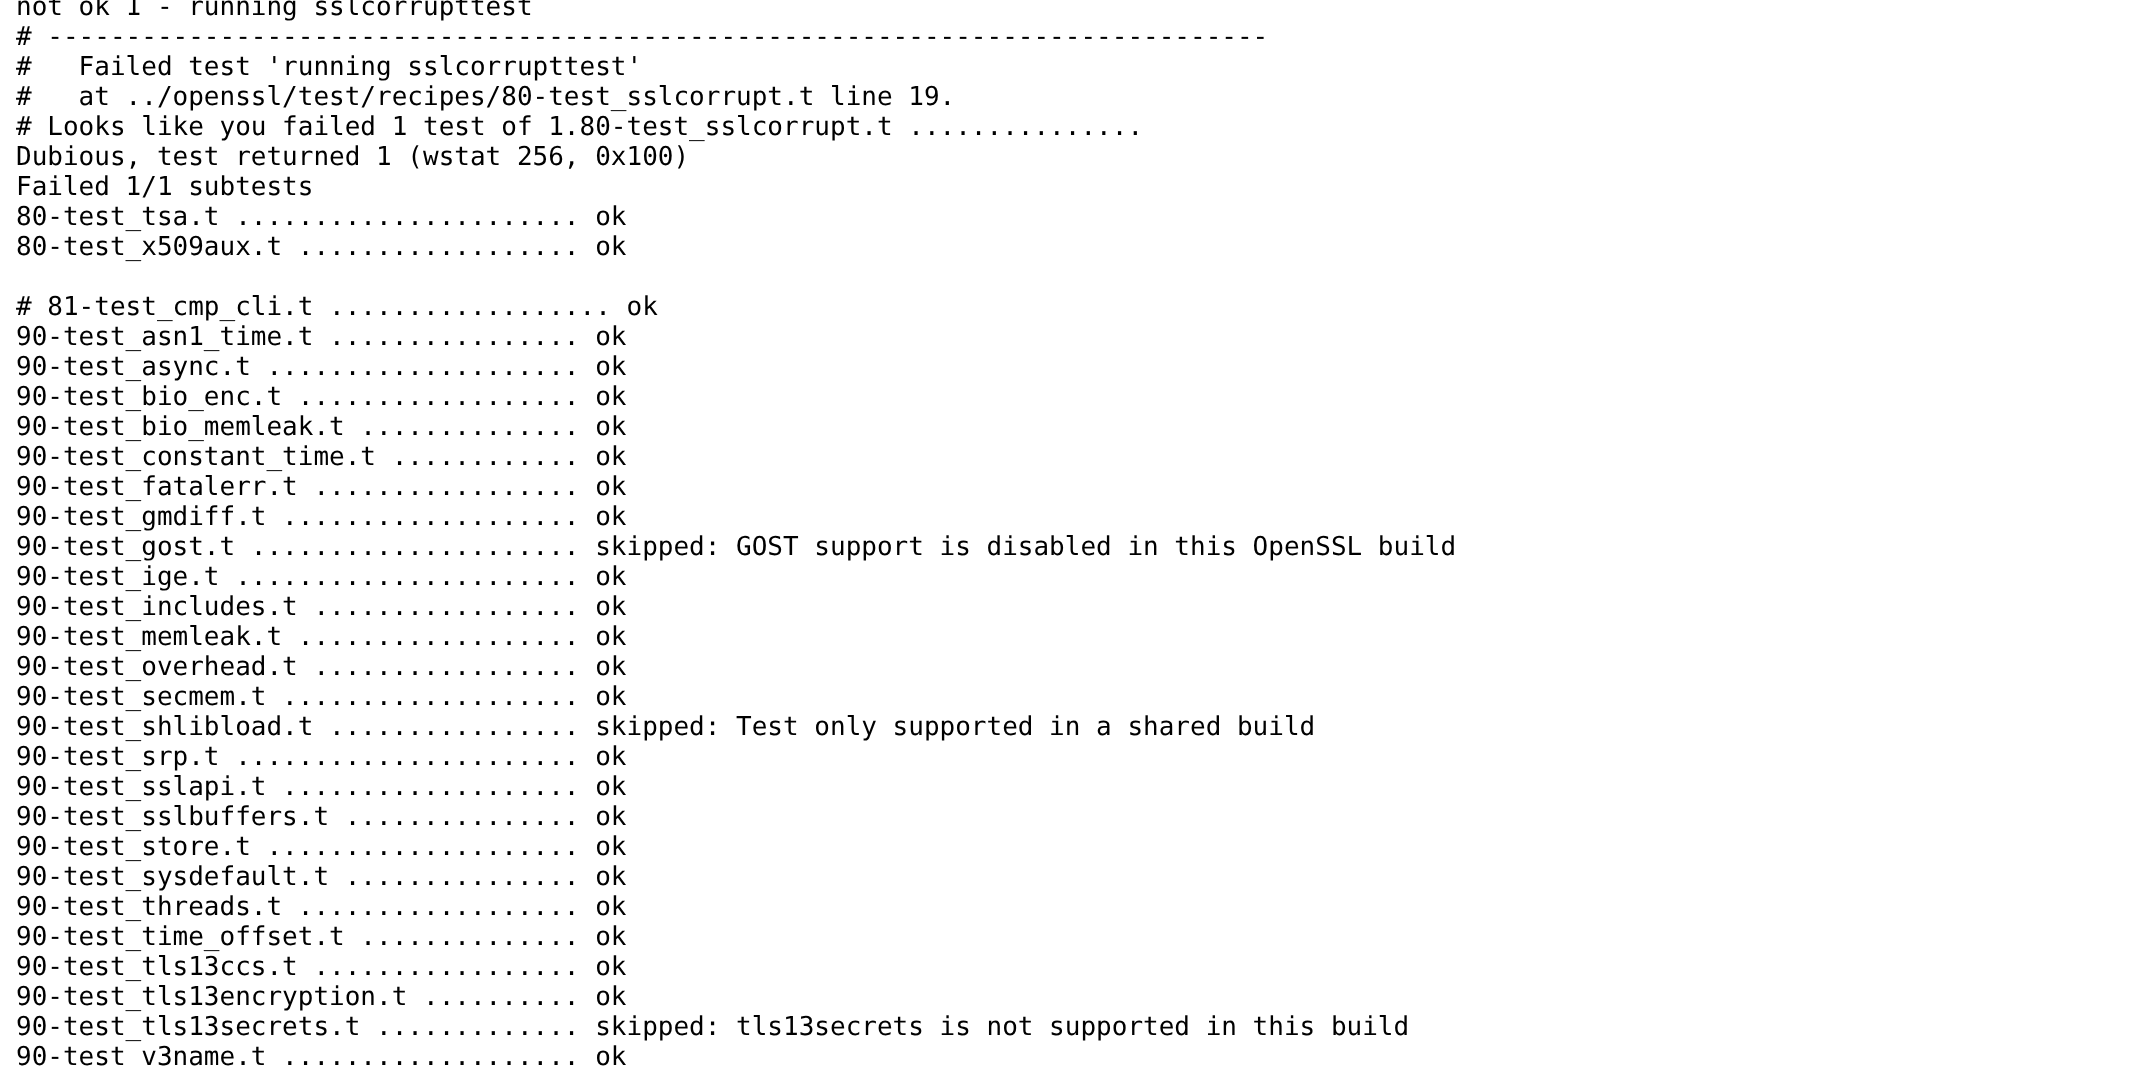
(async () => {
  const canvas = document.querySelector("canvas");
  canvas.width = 2145;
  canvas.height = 1068;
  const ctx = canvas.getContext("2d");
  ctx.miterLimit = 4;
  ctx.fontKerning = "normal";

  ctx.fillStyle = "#ffffff";
  ctx.fillRect(0, 0, 2145, 1068);
  ctx.font = "26px DejaVu Sans Mono";
  ctx.fillStyle = "#000000";
  for (const [text, x, y] of [
    ["not ok 1 - running sslcorrupttest", 16, 15],
    ["# ------------------------------------------------------------------------------", 16, 45],
    ["#   Failed test 'running sslcorrupttest'", 16, 75],
    ["#   at ../openssl/test/recipes/80-test_sslcorrupt.t line 19.", 16, 105],
    ["# Looks like you failed 1 test of 1.80-test_sslcorrupt.t ...............", 16, 135],
    ["Dubious, test returned 1 (wstat 256, 0x100)", 16, 165],
    ["Failed 1/1 subtests", 16, 195],
    ["80-test_tsa.t ...................... ok", 16, 225],
    ["80-test_x509aux.t .................. ok", 16, 255],
    ["# 81-test_cmp_cli.t .................. ok", 16, 315],
    ["90-test_asn1_time.t ................ ok", 16, 345],
    ["90-test_async.t .................... ok", 16, 375],
    ["90-test_bio_enc.t .................. ok", 16, 405],
    ["90-test_bio_memleak.t .............. ok", 16, 435],
    ["90-test_constant_time.t ............ ok", 16, 465],
    ["90-test_fatalerr.t ................. ok", 16, 495],
    ["90-test_gmdiff.t ................... ok", 16, 525],
    ["90-test_gost.t ..................... skipped: GOST support is disabled in this OpenSSL build", 16, 555],
    ["90-test_ige.t ...................... ok", 16, 585],
    ["90-test_includes.t ................. ok", 16, 615],
    ["90-test_memleak.t .................. ok", 16, 645],
    ["90-test_overhead.t ................. ok", 16, 675],
    ["90-test_secmem.t ................... ok", 16, 705],
    ["90-test_shlibload.t ................ skipped: Test only supported in a shared build", 16, 735],
    ["90-test_srp.t ...................... ok", 16, 765],
    ["90-test_sslapi.t ................... ok", 16, 795],
    ["90-test_sslbuffers.t ............... ok", 16, 825],
    ["90-test_store.t .................... ok", 16, 855],
    ["90-test_sysdefault.t ............... ok", 16, 885],
    ["90-test_threads.t .................. ok", 16, 915],
    ["90-test_time_offset.t .............. ok", 16, 945],
    ["90-test_tls13ccs.t ................. ok", 16, 975],
    ["90-test_tls13encryption.t .......... ok", 16, 1005],
    ["90-test_tls13secrets.t ............. skipped: tls13secrets is not supported in this build", 16, 1035],
    ["90-test_v3name.t ................... ok", 16, 1065],
  ]) {
    ctx.fillText(text, x, y);
  }
})();
